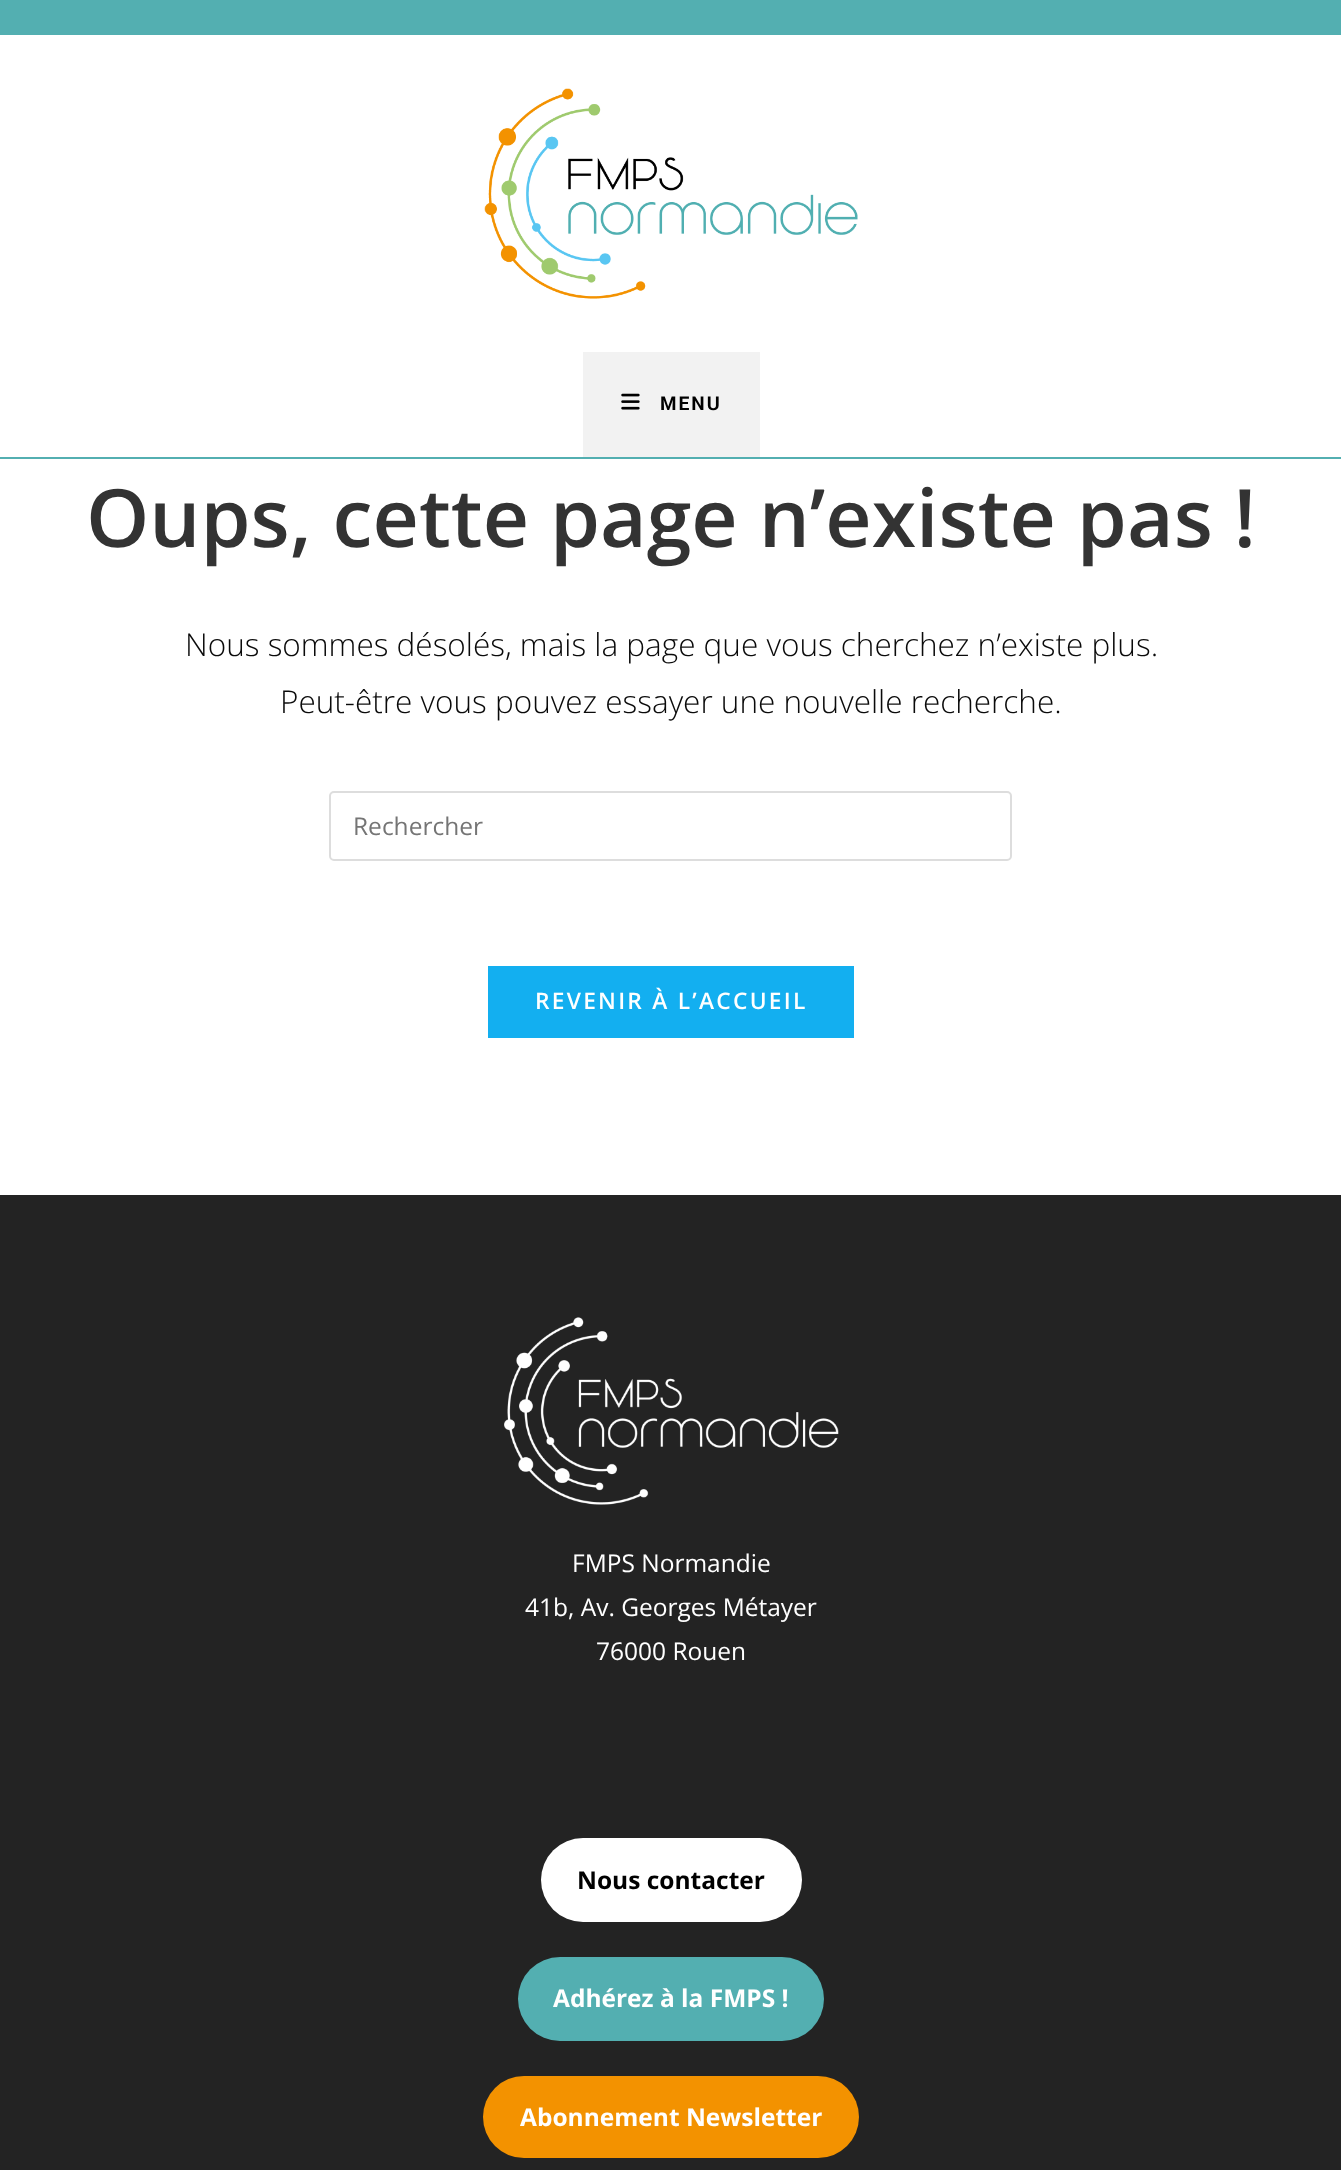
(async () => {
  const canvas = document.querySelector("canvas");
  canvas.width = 1341;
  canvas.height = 2170;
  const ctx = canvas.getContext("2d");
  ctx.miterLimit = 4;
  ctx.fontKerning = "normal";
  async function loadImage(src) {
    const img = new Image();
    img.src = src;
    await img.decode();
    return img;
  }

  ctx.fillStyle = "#ffffff";
  ctx.fillRect(0, 0, 1341, 2170);
  ctx.fillStyle = "#53afb1";
  ctx.fillRect(0, 0, 1341, 35);
  ctx.fillRect(0, 457, 1341, 2);
  ctx.drawImage(await loadImage("img/1.png"), 484, 88, 374, 211);
  ctx.fillStyle = "#f2f2f2";
  ctx.fillRect(583, 352, 177, 105);
  ctx.drawImage(await loadImage("img/2.png"), 621, 393, 19, 17);
  ctx.beginPath();
  ctx.roundRect(330, 792, 681, 68, 4);
  ctx.strokeStyle = "#dddddd";
  ctx.lineWidth = 2;
  ctx.stroke();
  ctx.fillStyle = "#13aff0";
  ctx.fillRect(488, 966, 366, 72);
  ctx.fillStyle = "#232323";
  ctx.fillRect(0, 1195, 1341, 975);
  ctx.drawImage(await loadImage("img/3.png"), 504, 1317, 335, 188);
  ctx.fillStyle = "#ffffff";
  ctx.beginPath();
  ctx.roundRect(541, 1838, 261, 84, 42);
  ctx.fill();
  ctx.fillStyle = "#53afb1";
  ctx.beginPath();
  ctx.roundRect(518, 1957, 306, 84, 42);
  ctx.fill();
  ctx.fillStyle = "#f39200";
  ctx.beginPath();
  ctx.roundRect(483, 2076, 376, 82, 41);
  ctx.fill();
  ctx.letterSpacing = "2px";
  ctx.font = "bold 21px Yantramanav";
  ctx.fillStyle = "#000000";
  ctx.fillText("MENU", 660, 410);
  ctx.letterSpacing = "0px";
  ctx.font = "600 80.5px Open Sans";
  ctx.fillStyle = "#333333";
  ctx.fillText("Oups, cette page n’existe pas !", 86, 547);
  ctx.font = "300 31.5px Open Sans";
  ctx.fillStyle = "#0a0a0a";
  ctx.fillText("Nous sommes désolés, mais la page que vous cherchez n’existe plus.", 185, 656);
  ctx.fillText("Peut-être vous pouvez essayer une nouvelle recherche.", 280, 713);
  ctx.font = "24.5px Open Sans";
  ctx.fillStyle = "#757575";
  ctx.fillText("Rechercher", 353, 835);
  ctx.letterSpacing = "2.25px";
  ctx.font = "600 22.75px Open Sans";
  ctx.fillStyle = "#ffffff";
  ctx.fillText("REVENIR À L’ACCUEIL", 535, 1009);
  ctx.letterSpacing = "0px";
  ctx.font = "24.5px Open Sans";
  for (const [text, x, y] of [
    ["FMPS Normandie", 572, 1572],
    ["41b, Av. Georges Métayer", 525, 1616],
    ["76000 Rouen", 596, 1660],
  ]) {
    ctx.fillText(text, x, y);
  }
  ctx.font = "bold 24.5px Open Sans";
  ctx.fillStyle = "#000000";
  ctx.fillText("Nous contacter", 577, 1889);
  ctx.fillStyle = "#ffffff";
  ctx.fillText("Adhérez à la FMPS !", 553, 2007);
  ctx.fillText("Abonnement Newsletter", 520, 2126);
})();
